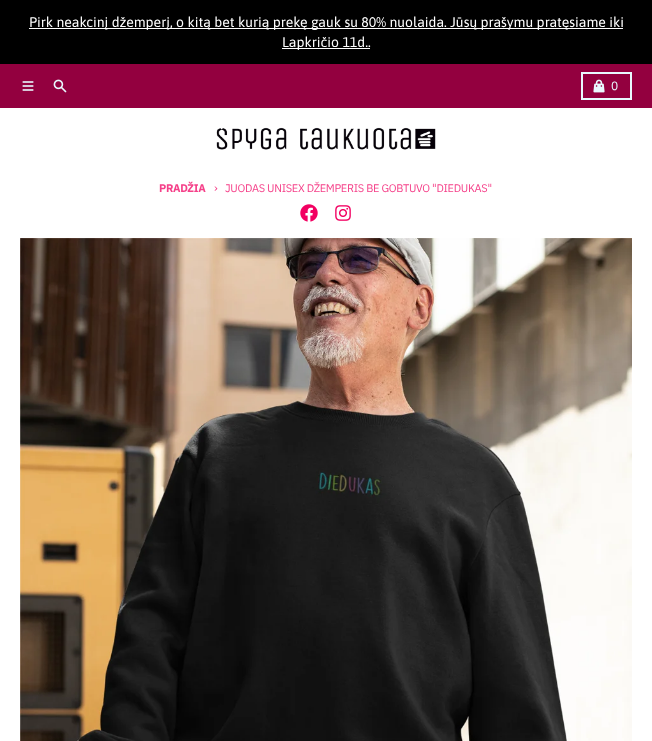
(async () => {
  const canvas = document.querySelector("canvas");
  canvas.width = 652;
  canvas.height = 741;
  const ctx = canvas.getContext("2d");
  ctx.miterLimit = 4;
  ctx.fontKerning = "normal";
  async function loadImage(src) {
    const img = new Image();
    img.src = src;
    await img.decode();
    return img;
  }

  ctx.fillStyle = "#93003f";
  ctx.fillRect(0, 0, 652, 741);
  for (const [x, y, w, h, color] of [
    [0, 0, 652, 64, "#000000"],
    [29, 28, 594, 1, "#ffffff"],
    [282, 48, 88, 1, "#ffffff"],
  ]) {
    ctx.fillStyle = color;
    ctx.fillRect(x, y, w, h);
  }
  ctx.drawImage(await loadImage("img/1.png"), 22, 81, 12, 10);
  ctx.drawImage(await loadImage("img/2.png"), 53, 79, 14, 14);
  ctx.strokeStyle = "#e9f9ff";
  ctx.lineWidth = 2;
  ctx.strokeRect(582, 73, 49, 26);
  ctx.drawImage(await loadImage("img/3.png"), 593, 79, 12, 14);
  ctx.fillRect(0, 108, 652, 633);
  ctx.drawImage(await loadImage("img/4.png"), 216, 127, 220, 23);
  ctx.drawImage(await loadImage("img/5.png"), 300, 204, 18, 18);
  ctx.drawImage(await loadImage("img/6.png"), 335, 205, 16, 16);
  ctx.drawImage(await loadImage("img/7.png"), 20, 238, 612, 503);
  ctx.font = "14px Asap";
  ctx.fillText("Pirk neakcinį džemperį, o kitą bet kurią prekę gauk su 80% nuolaida. Jūsų prašymu pratęsiame iki", 29, 27);
  ctx.fillText("Lapkričio 11d..", 282, 47);
  ctx.font = "12px IBM Plex Sans";
  ctx.fillStyle = "#e9f9ff";
  ctx.fillText("0", 611, 90);
  ctx.letterSpacing = "-0.3px";
  ctx.font = "bold 11px IBM Plex Sans";
  ctx.fillStyle = "#f54089";
  ctx.fillText("PRADŽIA", 159, 192);
  ctx.font = "12px IBM Plex Sans";
  ctx.fillText("›", 214, 192);
  ctx.font = "11px IBM Plex Sans";
  ctx.fillText("JUODAS UNISEX DŽEMPERIS BE GOBTUVO \"DIEDUKAS\"", 225, 192);
})();
